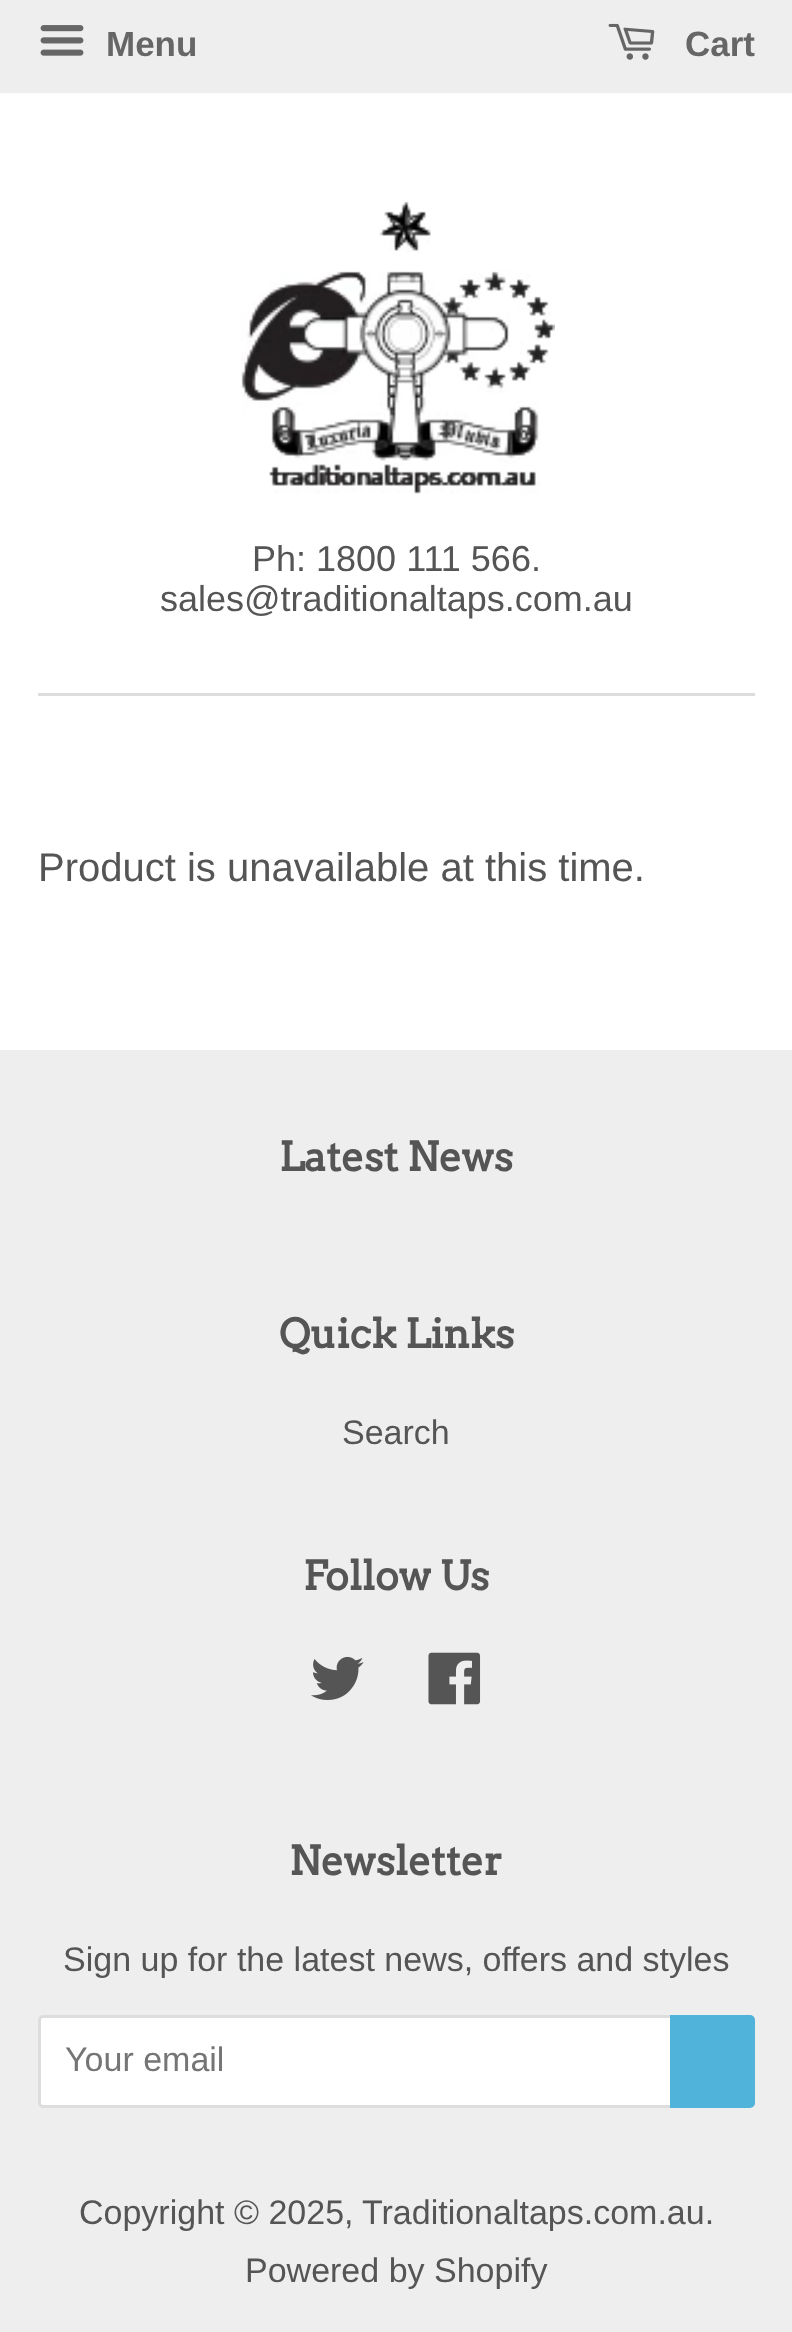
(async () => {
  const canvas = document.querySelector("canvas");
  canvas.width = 792;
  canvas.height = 2332;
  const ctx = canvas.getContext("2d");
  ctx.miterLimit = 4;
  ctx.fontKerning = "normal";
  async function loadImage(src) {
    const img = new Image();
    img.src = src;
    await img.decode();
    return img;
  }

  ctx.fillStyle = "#ffffff";
  ctx.fillRect(0, 0, 792, 2332);
  ctx.fillStyle = "#eeeeee";
  ctx.fillRect(0, 0, 792, 93);
  ctx.drawImage(await loadImage("img/1.png"), 40, 25, 44, 31);
  ctx.drawImage(await loadImage("img/2.png"), 608, 23, 47, 37);
  ctx.fillStyle = "#dddddd";
  ctx.fillRect(38, 693, 717, 3);
  ctx.drawImage(await loadImage("img/3.png"), 241, 201, 314, 293);
  ctx.fillStyle = "#eeeeee";
  ctx.fillRect(0, 1050, 792, 1282);
  ctx.drawImage(await loadImage("img/4.png"), 311, 1656, 53, 44);
  ctx.drawImage(await loadImage("img/5.png"), 428, 1652, 53, 53);
  ctx.fillStyle = "#ffffff";
  ctx.beginPath();
  ctx.roundRect(39.5, 2016.5, 632, 90, [3.5, 0, 0, 3.5]);
  ctx.fill();
  ctx.strokeStyle = "#dddddd";
  ctx.lineWidth = 3;
  ctx.stroke();
  ctx.fillStyle = "#50b3da";
  ctx.beginPath();
  ctx.roundRect(670, 2015, 85, 93, [0, 5, 5, 0]);
  ctx.fill();
  ctx.font = "bold 35px Liberation Sans";
  ctx.fillStyle = "#666666";
  ctx.fillText("Menu", 106, 56);
  ctx.fillText("Cart", 685, 56);
  ctx.font = "36px Liberation Sans";
  ctx.fillStyle = "#555555";
  ctx.fillText("Ph: 1800 111 566.", 252, 571);
  ctx.fillText("sales@traditionaltaps.com.au", 160, 611);
  ctx.font = "40px Liberation Sans";
  ctx.fillText("Product is unavailable at this time.", 38, 881);
  ctx.font = "bold 40px Arvo";
  ctx.fillText("Latest News", 279, 1171);
  ctx.fillText("Quick Links", 279, 1348);
  ctx.font = "34px Liberation Sans";
  ctx.fillText("Search", 342, 1444);
  ctx.font = "bold 40px Arvo";
  ctx.fillText("Follow Us", 303, 1590);
  ctx.fillText("Newsletter", 289, 1875);
  ctx.font = "34px Liberation Sans";
  ctx.fillText("Sign up for the latest news, offers and styles", 63, 1971);
  ctx.fillStyle = "#757575";
  ctx.fillText("Your email", 65, 2071);
  ctx.fillStyle = "#555555";
  for (const [text, x, y] of [
    ["Copyright © 2025,", 79, 2224],
    ["Traditionaltaps.com.au.", 362, 2224],
    ["Powered by Shopify", 245, 2282],
  ]) {
    ctx.fillText(text, x, y);
  }
})();
